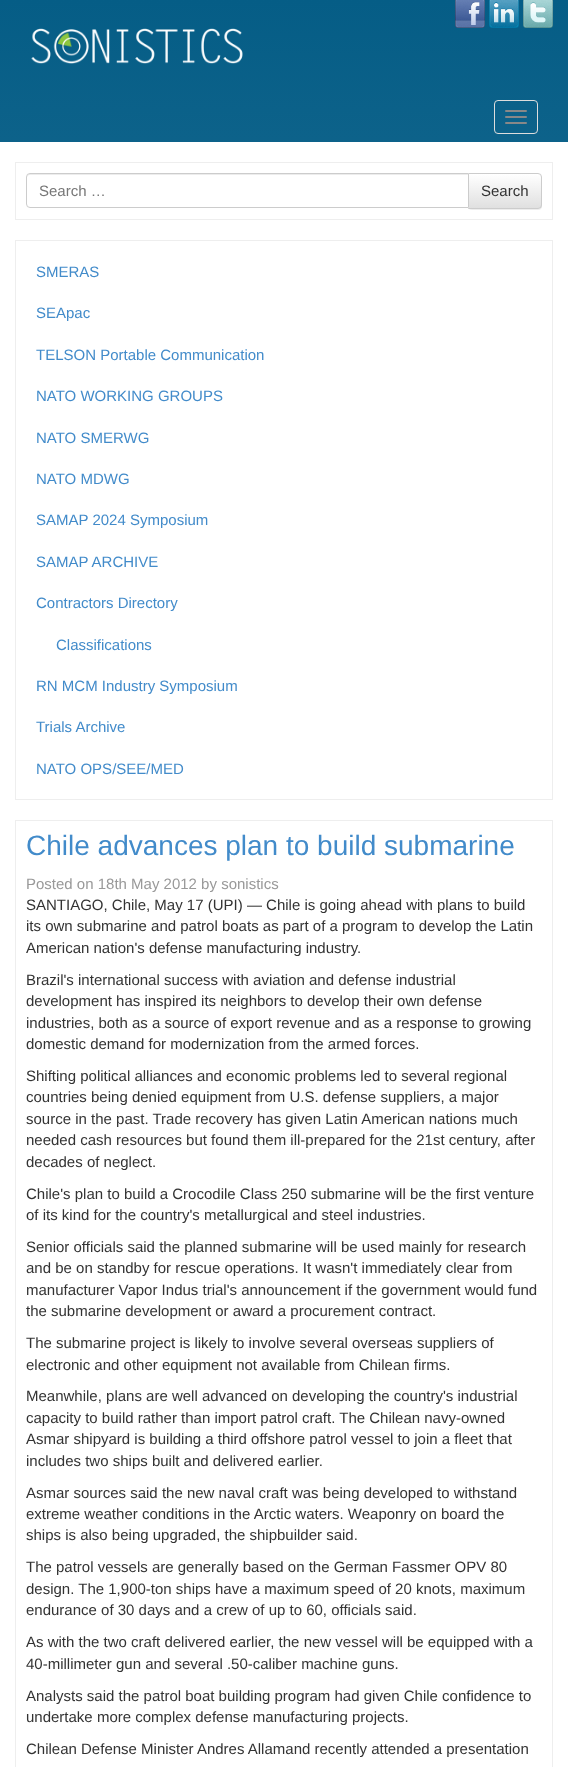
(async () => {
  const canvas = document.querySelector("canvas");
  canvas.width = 568;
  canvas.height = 1767;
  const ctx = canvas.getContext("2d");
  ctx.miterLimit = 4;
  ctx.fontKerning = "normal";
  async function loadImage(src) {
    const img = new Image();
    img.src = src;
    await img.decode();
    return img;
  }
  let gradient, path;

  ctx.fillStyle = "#ffffff";
  ctx.fillRect(0, 0, 568, 1767);
  gradient = ctx.createLinearGradient(284, 0, 284, 1767);
  gradient.addColorStop(0, "#055d86");
  gradient.addColorStop(1, "#669db9");
  ctx.fillStyle = gradient;
  ctx.fillRect(0, 0, 568, 142);
  ctx.drawImage(await loadImage("img/1.png"), 455, 0, 30, 28);
  ctx.drawImage(await loadImage("img/2.png"), 489, 0, 30, 28);
  ctx.drawImage(await loadImage("img/3.png"), 523, 0, 30, 28);
  ctx.drawImage(await loadImage("img/4.png"), 31, 28, 212, 36);
  ctx.beginPath();
  ctx.roundRect(494.5, 100.5, 43, 33, 3.5);
  ctx.strokeStyle = "#dddddd";
  ctx.stroke();
  ctx.fillStyle = "#888888";
  ctx.beginPath();
  ctx.roundRect(505, 110, 22, 2, 1);
  ctx.fill();
  ctx.beginPath();
  ctx.roundRect(505, 116, 22, 2, 1);
  ctx.fill();
  ctx.beginPath();
  ctx.roundRect(505, 122, 22, 2, 1);
  ctx.fill();
  ctx.strokeStyle = "#eeeeee";
  ctx.strokeRect(15.5, 162.5, 537, 57);
  ctx.fillStyle = "rgba(0, 0, 0, 0.07)";
  ctx.filter = "blur(0.5px)";
  ctx.beginPath();
  ctx.roundRect(468, 174, 74, 36, 4);
  ctx.fill();
  ctx.filter = "none";
  ctx.save();
  ctx.beginPath();
  ctx.roundRect(468, 173, 74, 36, [0, 4, 4, 0]);
  ctx.clip();
  gradient = ctx.createLinearGradient(505, 174, 505, 208);
  gradient.addColorStop(0, "#ffffff");
  gradient.addColorStop(1, "#e0e0e0");
  ctx.fillStyle = gradient;
  ctx.fillRect(469, 174, 73, 34);
  ctx.restore();
  ctx.beginPath();
  ctx.roundRect(468.5, 173.5, 73, 35, [0, 3.5, 3.5, 0]);
  ctx.strokeStyle = "#cccccc";
  ctx.stroke();
  ctx.fillStyle = "#ffffff";
  ctx.beginPath();
  ctx.roundRect(26, 173, 443, 35, [4, 0, 0, 4]);
  ctx.fill();
  ctx.fillStyle = "#ececec";
  path = new Path2D("M30 175H468V174H30C28 174 27 176 27 178C27 176 28 175 30 175Z");
  ctx.fill(path);
  ctx.beginPath();
  ctx.roundRect(26.5, 173.5, 442, 34, [3.5, 0, 0, 3.5]);
  ctx.stroke();
  ctx.strokeStyle = "#eeeeee";
  ctx.strokeRect(15.5, 240.5, 537, 559);
  ctx.strokeRect(15.5, 820.5, 537, 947);
  ctx.font = "15px Liberation Sans";
  ctx.fillStyle = "#777777";
  ctx.fillText("Search …", 39, 196);
  ctx.fillStyle = "#333333";
  ctx.fillText("Search", 481, 196);
  ctx.fillStyle = "#428bca";
  for (const [text, x, y] of [
    ["SMERAS", 36, 277],
    ["SEApac", 36, 318],
    ["TELSON Portable Communication", 36, 360],
    ["NATO WORKING GROUPS", 36, 401],
    ["NATO SMERWG", 36, 443],
    ["NATO MDWG", 36, 484],
    ["SAMAP 2024 Symposium", 36, 525],
    ["SAMAP ARCHIVE", 36, 567],
    ["Contractors Directory", 36, 608],
    ["Classifications", 56, 650],
    ["RN MCM Industry Symposium", 36, 691],
    ["Trials Archive", 36, 732],
    ["NATO OPS/SEE/MED", 36, 774],
  ]) {
    ctx.fillText(text, x, y);
  }
  ctx.font = "28px Liberation Sans";
  ctx.fillText("Chile advances plan to build submarine", 26, 855);
  ctx.font = "15px Liberation Sans";
  ctx.fillStyle = "#999999";
  ctx.fillText("Posted on 18th May 2012 by sonistics", 26, 889);
  ctx.fillStyle = "#333333";
  for (const [text, x, y] of [
    ["SANTIAGO, Chile, May 17 (UPI) — Chile is going ahead with plans to build", 26, 910],
    ["its own submarine and patrol boats as part of a program to develop the Latin", 26, 931],
    ["American nation's defense manufacturing industry.", 26, 953],
    ["Brazil's international success with aviation and defense industrial", 26, 985],
    ["development has inspired its neighbors to develop their own defense", 26, 1006],
    ["industries, both as a source of export revenue and as a response to growing", 26, 1028],
    ["domestic demand for modernization from the armed forces.", 26, 1049],
    ["Shifting political alliances and economic problems led to several regional", 26, 1081],
    ["countries being denied equipment from U.S. defense suppliers, a major", 26, 1102],
    ["source in the past. Trade recovery has given Latin American nations much", 26, 1124],
    ["needed cash resources but found them ill-prepared for the 21st century, after", 26, 1145],
    ["decades of neglect.", 26, 1167],
    ["Chile's plan to build a Crocodile Class 250 submarine will be the first venture", 26, 1199],
    ["of its kind for the country's metallurgical and steel industries.", 26, 1220],
    ["Senior officials said the planned submarine will be used mainly for research", 26, 1252],
    ["and be on standby for rescue operations. It wasn't immediately clear from", 26, 1273],
    ["manufacturer Vapor Indus trial's announcement if the government would fund", 26, 1295],
    ["the submarine development or award a procurement contract.", 26, 1316],
    ["The submarine project is likely to involve several overseas suppliers of", 26, 1348],
    ["electronic and other equipment not available from Chilean firms.", 26, 1370],
    ["Meanwhile, plans are well advanced on developing the country's industrial", 26, 1401],
    ["capacity to build rather than import patrol craft. The Chilean navy-owned", 26, 1423],
    ["Asmar shipyard is building a third offshore patrol vessel to join a fleet that", 26, 1444],
    ["includes two ships built and delivered earlier.", 26, 1466],
    ["Asmar sources said the new naval craft was being developed to withstand", 26, 1498],
    ["extreme weather conditions in the Arctic waters. Weaponry on board the", 26, 1519],
    ["ships is also being upgraded, the shipbuilder said.", 26, 1540],
    ["The patrol vessels are generally based on the German Fassmer OPV 80", 26, 1572],
    ["design. The 1,900-ton ships have a maximum speed of 20 knots, maximum", 26, 1594],
    ["endurance of 30 days and a crew of up to 60, officials said.", 26, 1615],
    ["As with the two craft delivered earlier, the new vessel will be equipped with a", 26, 1647],
    ["40-millimeter gun and several .50-caliber machine guns.", 26, 1669],
    ["Analysts said the patrol boat building program had given Chile confidence to", 26, 1701],
    ["undertake more complex defense manufacturing projects.", 26, 1722],
    ["Chilean Defense Minister Andres Allamand recently attended a presentation", 26, 1754],
  ]) {
    ctx.fillText(text, x, y);
  }
})();
